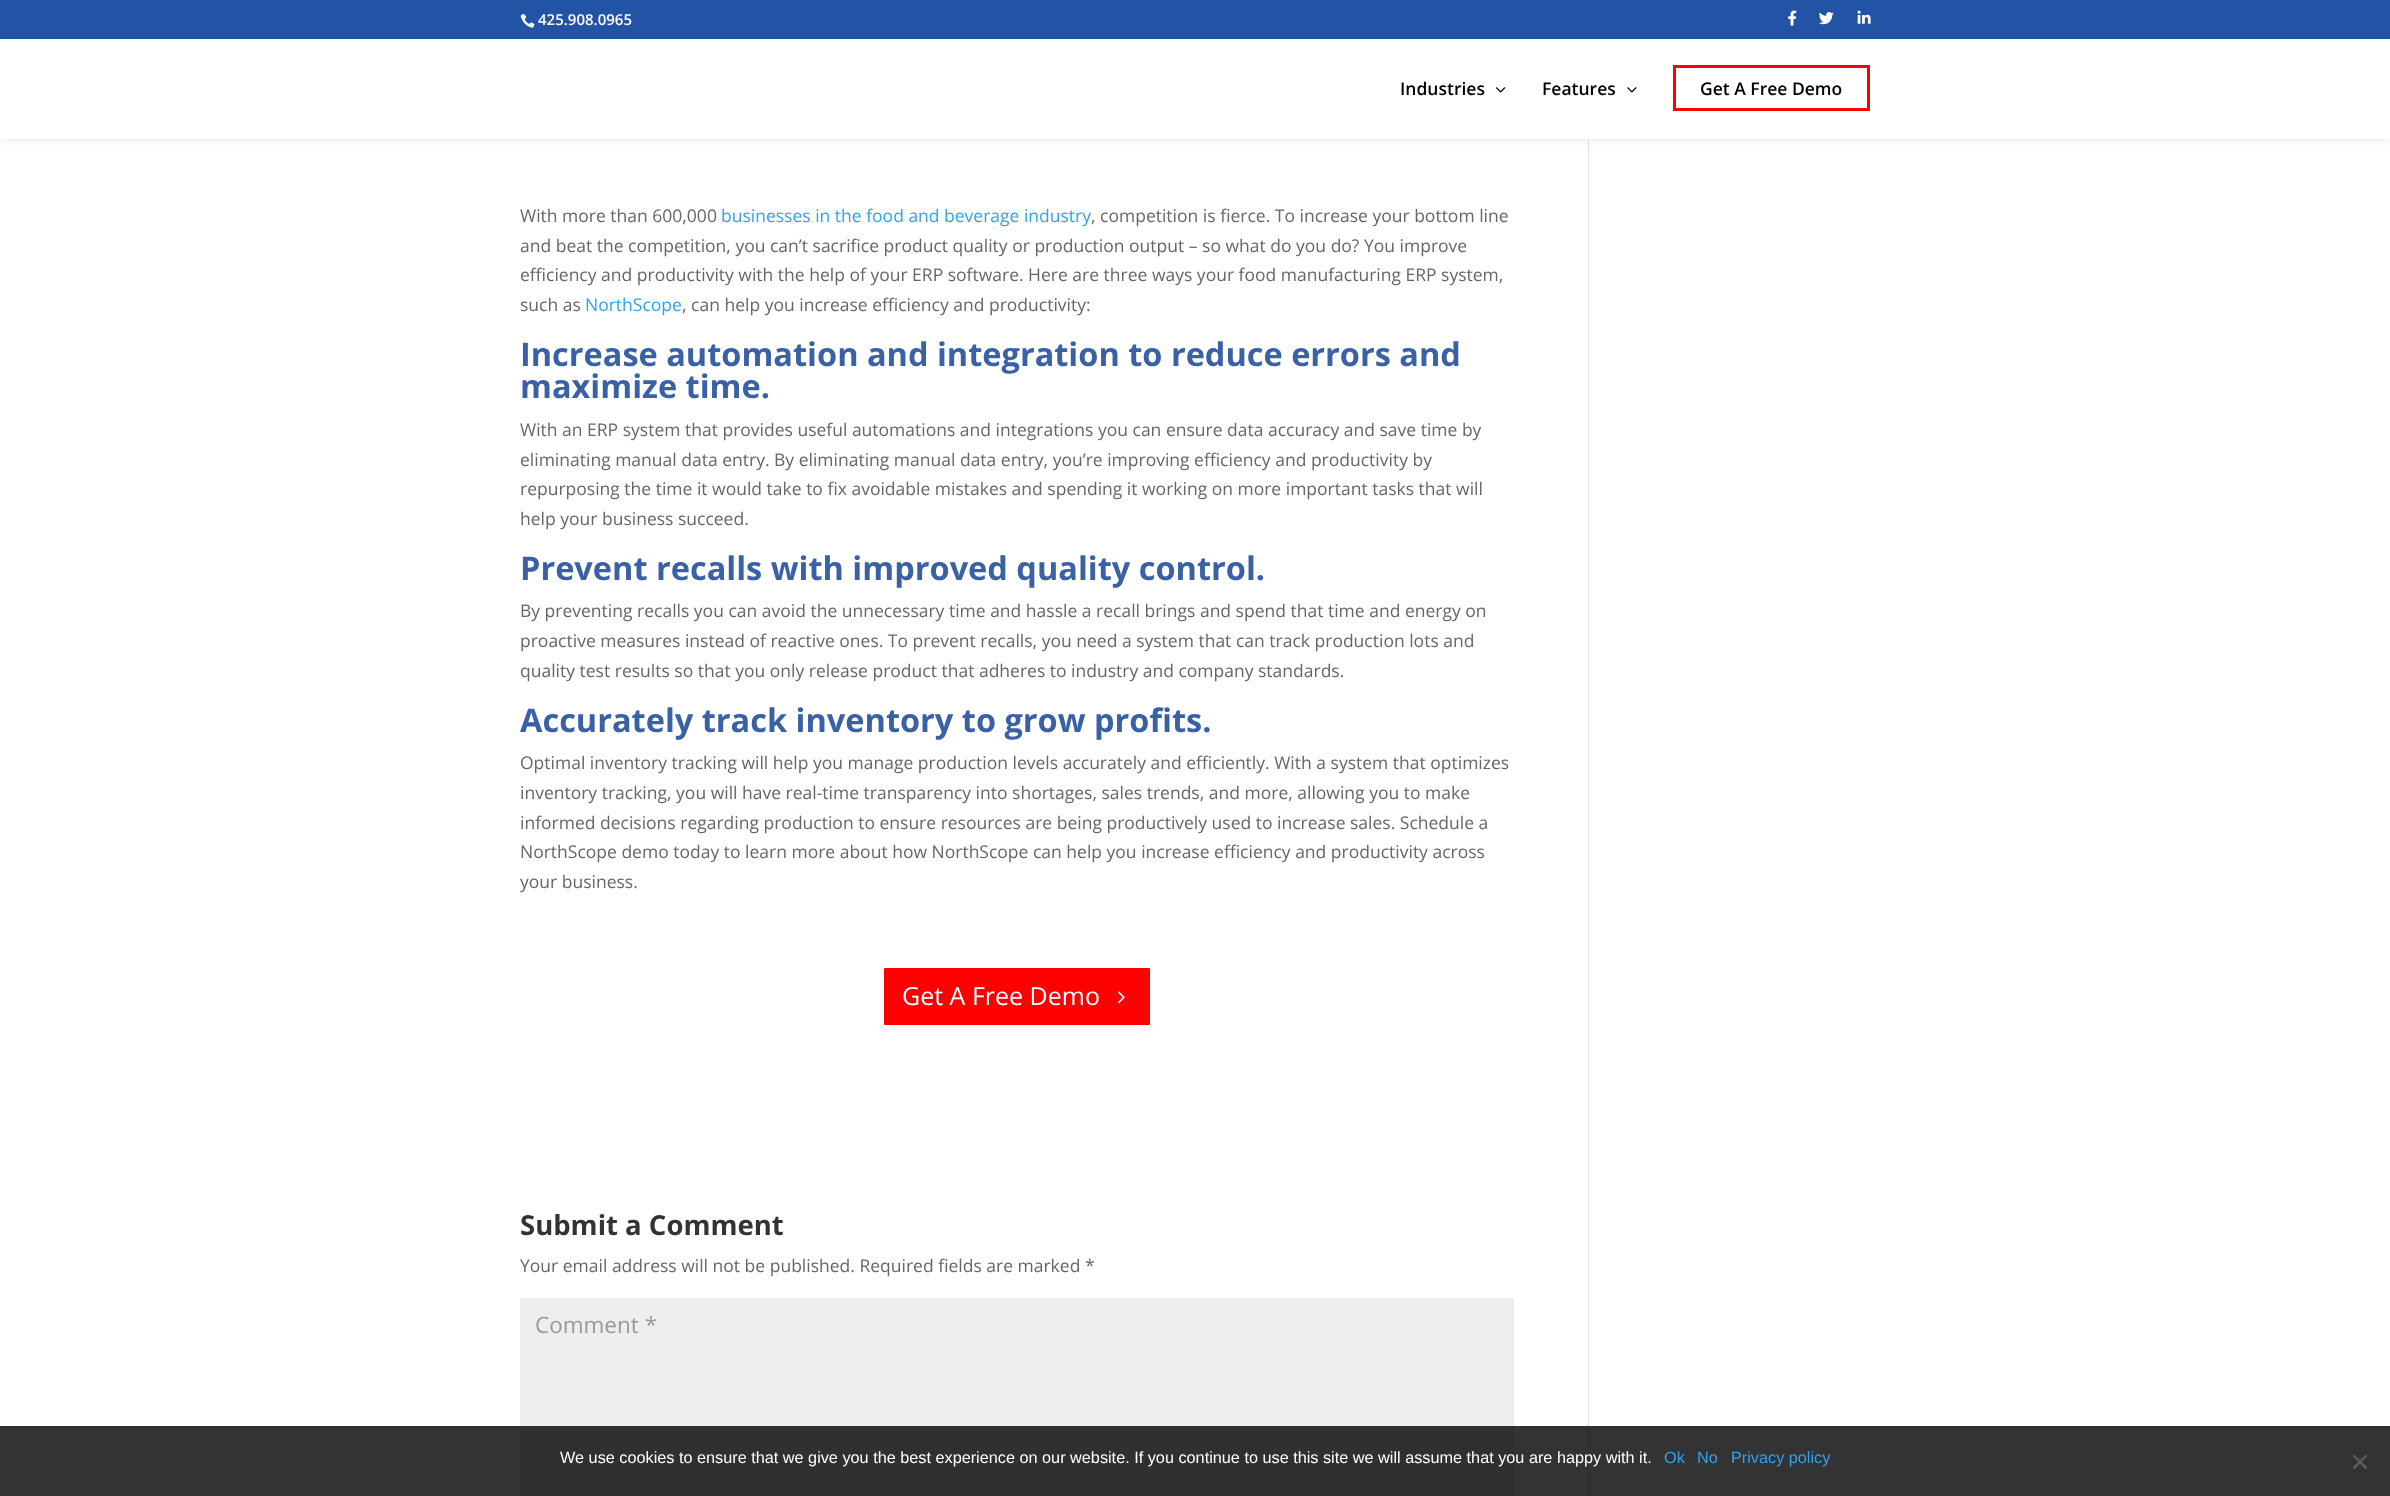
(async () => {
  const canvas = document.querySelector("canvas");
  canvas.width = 2390;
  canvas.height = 1496;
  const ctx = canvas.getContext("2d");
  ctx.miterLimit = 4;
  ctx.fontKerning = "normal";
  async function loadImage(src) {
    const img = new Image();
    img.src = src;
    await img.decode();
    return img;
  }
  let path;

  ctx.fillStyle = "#ffffff";
  ctx.fillRect(0, 0, 2390, 1496);
  ctx.fillStyle = "#333333";
  ctx.fillRect(0, 1426, 2390, 70);
  ctx.fillStyle = "#e2e2e2";
  ctx.fillRect(1588, 139, 1, 1287);
  ctx.fillStyle = "rgba(0, 0, 0, 0.1)";
  ctx.filter = "blur(4.5px)";
  ctx.beginPath();
  ctx.rect(0, 39, 2390, 100);
  ctx.fill();
  ctx.filter = "none";
  ctx.fillStyle = "#2253a5";
  ctx.fillRect(0, 0, 2390, 39);
  ctx.drawImage(await loadImage("img/1.png"), 520, 14, 15, 14);
  ctx.drawImage(await loadImage("img/2.png"), 1788, 10, 9, 16);
  ctx.drawImage(await loadImage("img/3.png"), 1819, 12, 15, 13);
  ctx.drawImage(await loadImage("img/4.png"), 1857, 10, 14, 14);
  ctx.fillStyle = "#ffffff";
  ctx.fillRect(0, 39, 2390, 100);
  ctx.drawImage(await loadImage("img/5.png"), 1496, 87, 10, 6);
  ctx.drawImage(await loadImage("img/6.png"), 1627, 87, 10, 6);
  ctx.strokeStyle = "#ff0000";
  ctx.lineWidth = 3;
  ctx.strokeRect(1674.5, 66.5, 194, 43);
  ctx.fillStyle = "#ff0000";
  ctx.beginPath();
  ctx.roundRect(882.5, 966.5, 269, 60, 2.5);
  ctx.fill();
  ctx.strokeStyle = "#ffffff";
  ctx.stroke();
  ctx.drawImage(await loadImage("img/7.png"), 1118, 991, 7, 13);
  for (const [x, y, w, h, color] of [
    [520, 1298, 994, 128, "#eeeeee"],
    [520, 1426, 994, 70, "#303030"],
    [1588, 1426, 1, 70, "#2d2d2d"],
  ]) {
    ctx.fillStyle = color;
    ctx.fillRect(x, y, w, h);
  }
  ctx.fillStyle = "#5a5a5a";
  path = new Path2D("M2365.5 1454.5L2367.5 1456L2354.5 1469.5L2352.5 1467.5Z");
  ctx.fill(path);
  path = new Path2D("M2352.5 1456L2354.5 1454.5L2367.5 1467.5L2365.5 1469.5Z");
  ctx.fill(path);
  ctx.font = "600 15px Open Sans";
  ctx.fillStyle = "#ffffff";
  ctx.fillText("425.908.0965", 538, 25);
  ctx.font = "600 17.5px Open Sans";
  ctx.fillStyle = "#000000";
  for (const [text, x, y] of [
    ["Industries", 1400, 95],
    ["Features", 1542, 95],
    ["Get A Free Demo", 1700, 95],
  ]) {
    ctx.fillText(text, x, y);
  }
  ctx.font = "17.5px Open Sans";
  ctx.fillStyle = "#666666";
  ctx.fillText("With more than 600,000", 520, 222);
  ctx.fillStyle = "#2ea3f2";
  ctx.fillText("businesses in the food and beverage industry", 721, 222);
  ctx.fillStyle = "#666666";
  for (const [text, x, y] of [
    [", competition is fierce. To increase your bottom line", 1091, 222],
    ["and beat the competition, you can’t sacrifice product quality or production output – so what do you do? You improve", 520, 252],
    ["efficiency and productivity with the help of your ERP software. Here are three ways your food manufacturing ERP system,", 520, 281],
    ["such as", 520, 311],
  ]) {
    ctx.fillText(text, x, y);
  }
  ctx.fillStyle = "#2ea3f2";
  ctx.fillText("NorthScope", 585, 311);
  ctx.fillStyle = "#666666";
  ctx.fillText(", can help you increase efficiency and productivity:", 682, 311);
  ctx.font = "bold 32.5px Open Sans";
  ctx.fillStyle = "#3a61a5";
  ctx.fillText("Increase automation and integration to reduce errors and", 520, 366);
  ctx.fillText("maximize time.", 520, 398);
  ctx.font = "17.5px Open Sans";
  ctx.fillStyle = "#666666";
  for (const [text, x, y] of [
    ["With an ERP system that provides useful automations and integrations you can ensure data accuracy and save time by", 520, 436],
    ["eliminating manual data entry. By eliminating manual data entry, you’re improving efficiency and productivity by", 520, 466],
    ["repurposing the time it would take to fix avoidable mistakes and spending it working on more important tasks that will", 520, 495],
    ["help your business succeed.", 520, 525],
  ]) {
    ctx.fillText(text, x, y);
  }
  ctx.font = "bold 32.5px Open Sans";
  ctx.fillStyle = "#3a61a5";
  ctx.fillText("Prevent recalls with improved quality control.", 520, 580);
  ctx.font = "17.5px Open Sans";
  ctx.fillStyle = "#666666";
  for (const [text, x, y] of [
    ["By preventing recalls you can avoid the unnecessary time and hassle a recall brings and spend that time and energy on", 520, 617],
    ["proactive measures instead of reactive ones. To prevent recalls, you need a system that can track production lots and", 520, 647],
    ["quality test results so that you only release product that adheres to industry and company standards.", 520, 677],
  ]) {
    ctx.fillText(text, x, y);
  }
  ctx.font = "bold 32.5px Open Sans";
  ctx.fillStyle = "#3a61a5";
  ctx.fillText("Accurately track inventory to grow profits.", 520, 732);
  ctx.font = "17.5px Open Sans";
  ctx.fillStyle = "#666666";
  for (const [text, x, y] of [
    ["Optimal inventory tracking will help you manage production levels accurately and efficiently. With a system that optimizes", 520, 769],
    ["inventory tracking, you will have real-time transparency into shortages, sales trends, and more, allowing you to make", 520, 799],
    ["informed decisions regarding production to ensure resources are being productively used to increase sales. Schedule a", 520, 829],
    ["NorthScope demo today to learn more about how NorthScope can help you increase efficiency and productivity across", 520, 858],
    ["your business.", 520, 888],
  ]) {
    ctx.fillText(text, x, y);
  }
  ctx.font = "25px Open Sans";
  ctx.fillStyle = "#ffffff";
  ctx.fillText("Get A Free Demo", 902, 1005);
  ctx.font = "bold 27.5px Open Sans";
  ctx.fillStyle = "#333333";
  ctx.fillText("Submit a Comment", 520, 1235);
  ctx.font = "17.5px Open Sans";
  ctx.fillStyle = "#666666";
  ctx.fillText("Your email address will not be published. Required fields are marked *", 520, 1272);
  ctx.font = "22.5px Open Sans";
  ctx.fillStyle = "#999999";
  ctx.fillText("Comment *", 535, 1333);
  ctx.font = "16.25px Liberation Sans";
  ctx.fillStyle = "#ffffff";
  ctx.fillText("We use cookies to ensure that we give you the best experience on our website. If you continue to use this site we will assume that you are happy with it.", 560, 1463);
  ctx.fillStyle = "#2ea3f2";
  for (const [text, x, y] of [
    ["Ok", 1664, 1463],
    ["No", 1697, 1463],
    ["Privacy policy", 1731, 1463],
  ]) {
    ctx.fillText(text, x, y);
  }
})();
